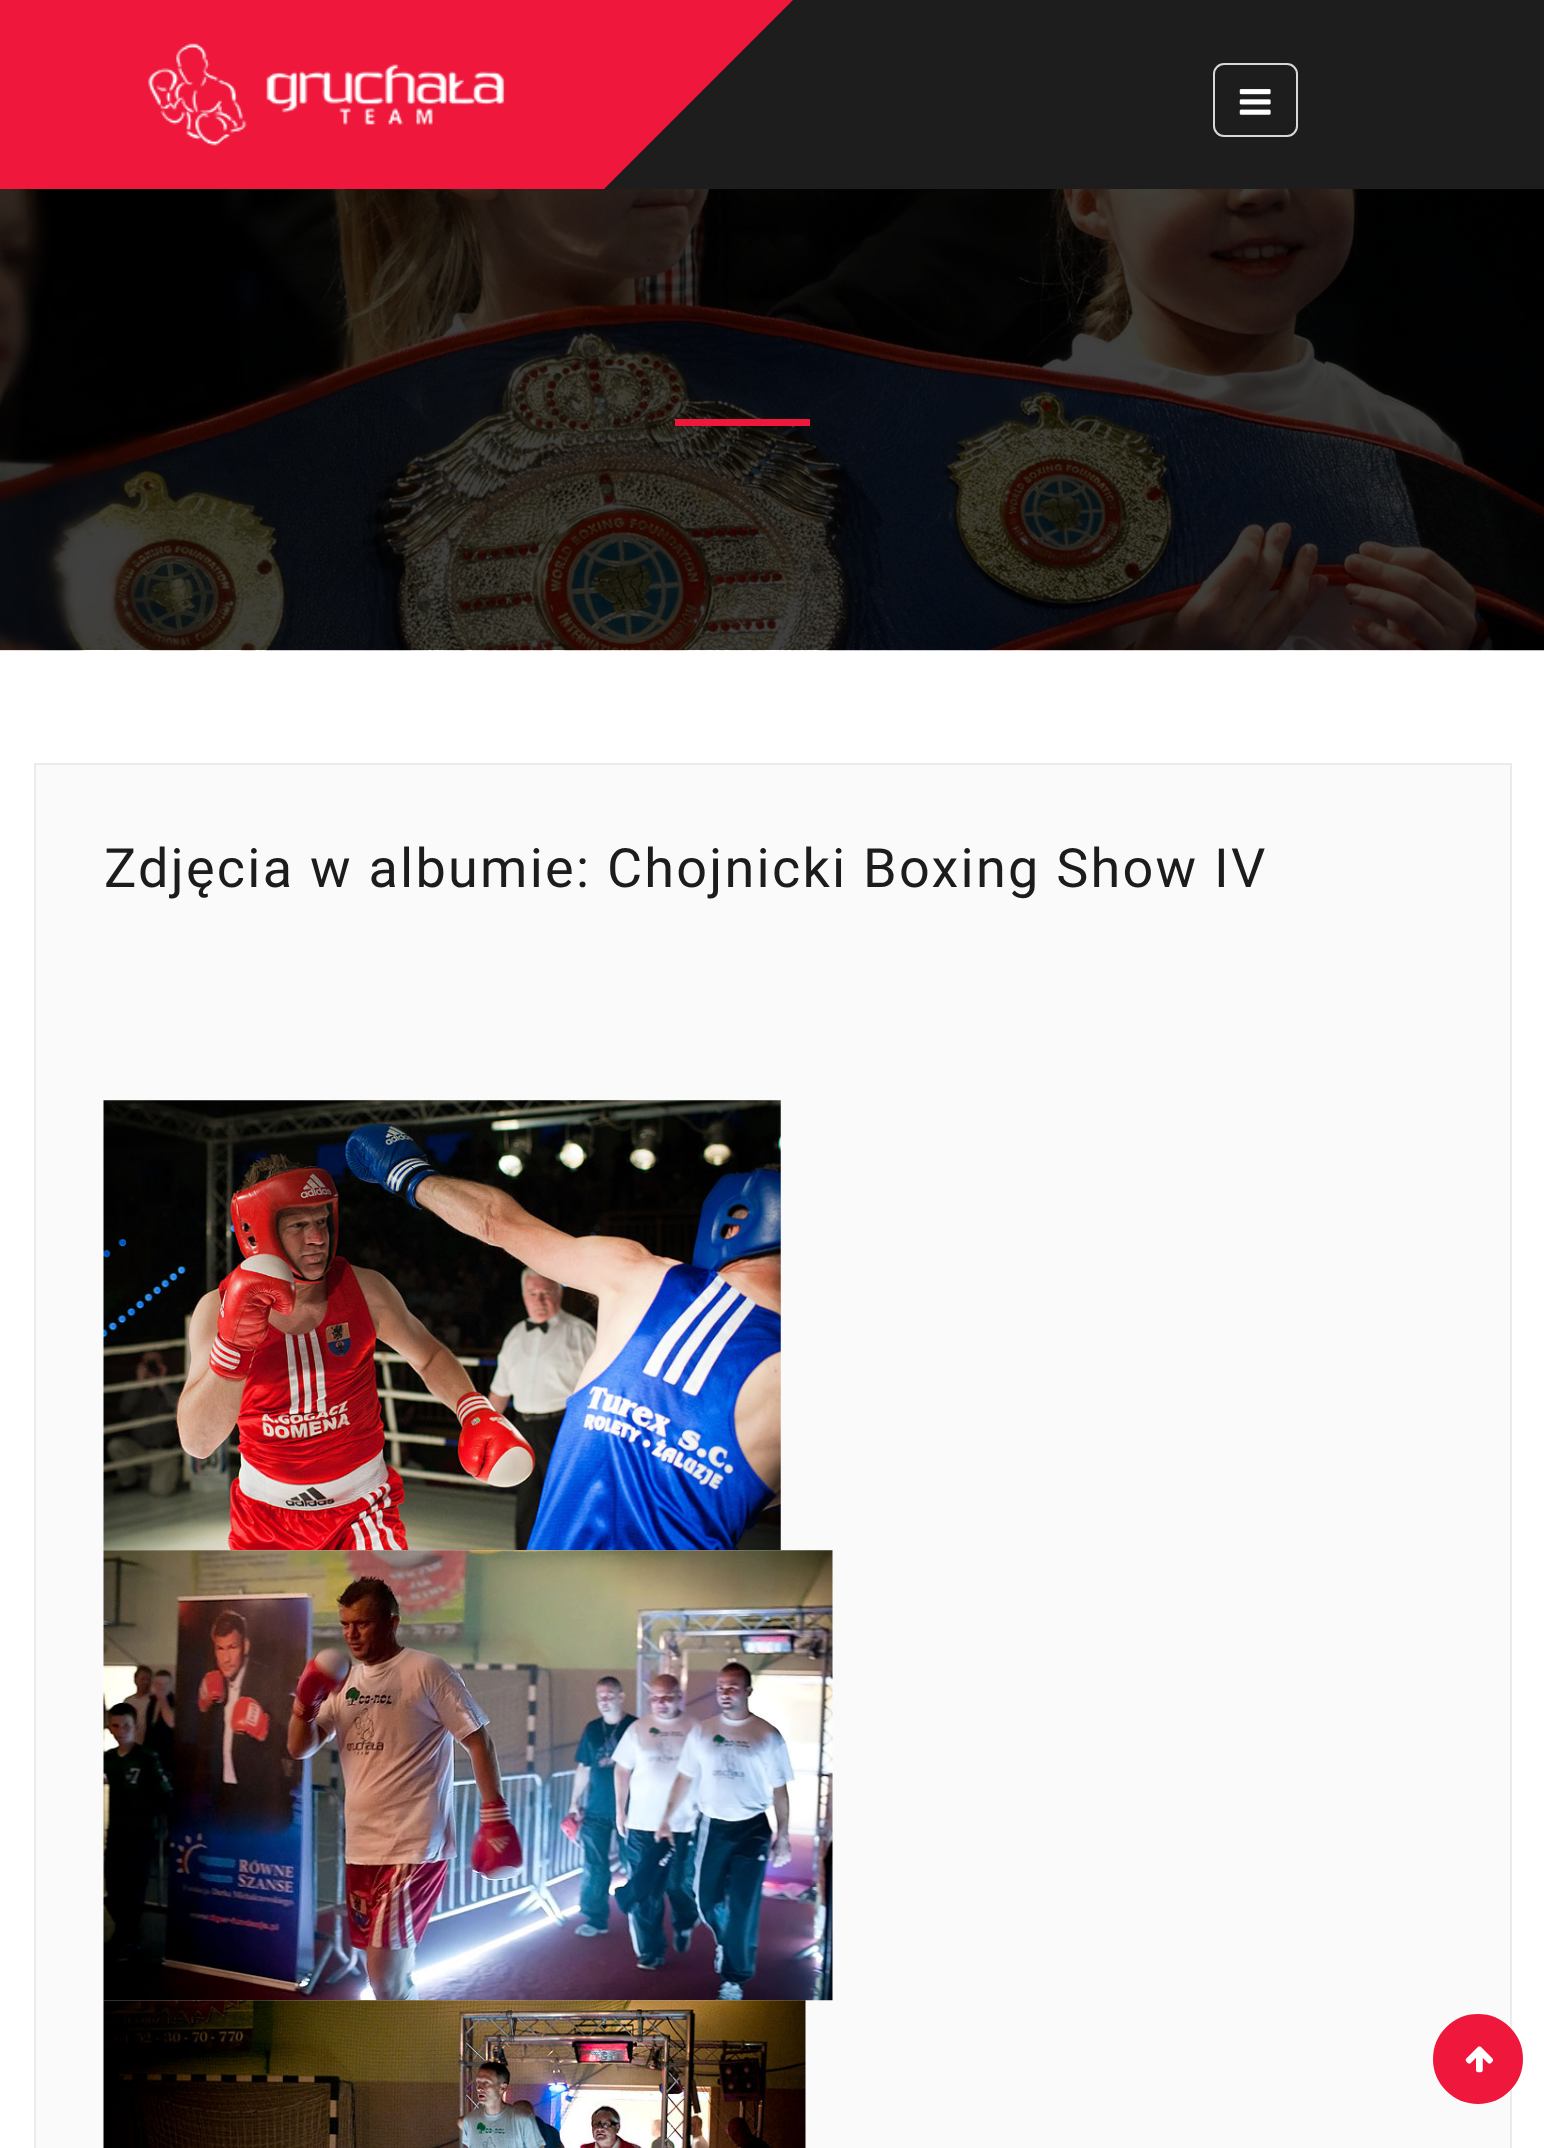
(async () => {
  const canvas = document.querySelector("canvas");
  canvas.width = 1544;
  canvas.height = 2148;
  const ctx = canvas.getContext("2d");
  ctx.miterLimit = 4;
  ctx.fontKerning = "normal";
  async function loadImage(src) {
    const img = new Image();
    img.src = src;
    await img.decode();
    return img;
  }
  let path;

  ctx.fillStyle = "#ffffff";
  ctx.fillRect(0, 0, 1544, 2148);
  ctx.fillStyle = "#1d1d1d";
  ctx.fillRect(604, 0, 940, 189);
  ctx.fillStyle = "#ef173c";
  path = new Path2D("M-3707 0H793L604 189H-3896Z");
  ctx.fill(path);
  ctx.drawImage(await loadImage("img/1.png"), 148, 43, 357, 103);
  ctx.beginPath();
  ctx.roundRect(1214, 64, 83, 72, 10);
  ctx.strokeStyle = "#d8d8d8";
  ctx.lineWidth = 2;
  ctx.stroke();
  ctx.drawImage(await loadImage("img/2.png"), 1239, 89, 32, 26);
  ctx.drawImage(await loadImage("img/3.png"), 0, 189, 1544, 462);
  ctx.fillRect(675, 419, 135, 7);
  ctx.fillStyle = "#fafafa";
  ctx.beginPath();
  ctx.rect(35, 764, 1476, 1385);
  ctx.fill();
  ctx.strokeStyle = "#ebebeb";
  ctx.stroke();
  ctx.drawImage(await loadImage("img/4.png"), 103, 1100, 678, 451);
  ctx.drawImage(await loadImage("img/5.png"), 103, 1550, 730, 451);
  ctx.drawImage(await loadImage("img/6.png"), 103, 2000, 703, 148);
  ctx.fillStyle = "#ef173c";
  ctx.beginPath();
  ctx.arc(1478, 2059, 44, 0, Math.PI * 2);
  ctx.fill();
  ctx.strokeStyle = "#ef173c";
  ctx.stroke();
  ctx.drawImage(await loadImage("img/7.png"), 1465, 2046, 28, 27);
  ctx.letterSpacing = "2.25px";
  ctx.font = "54px Roboto";
  ctx.fillStyle = "#1c1c1c";
  ctx.fillText("Zdjęcia w albumie: Chojnicki Boxing Show IV", 104, 887);
})();
